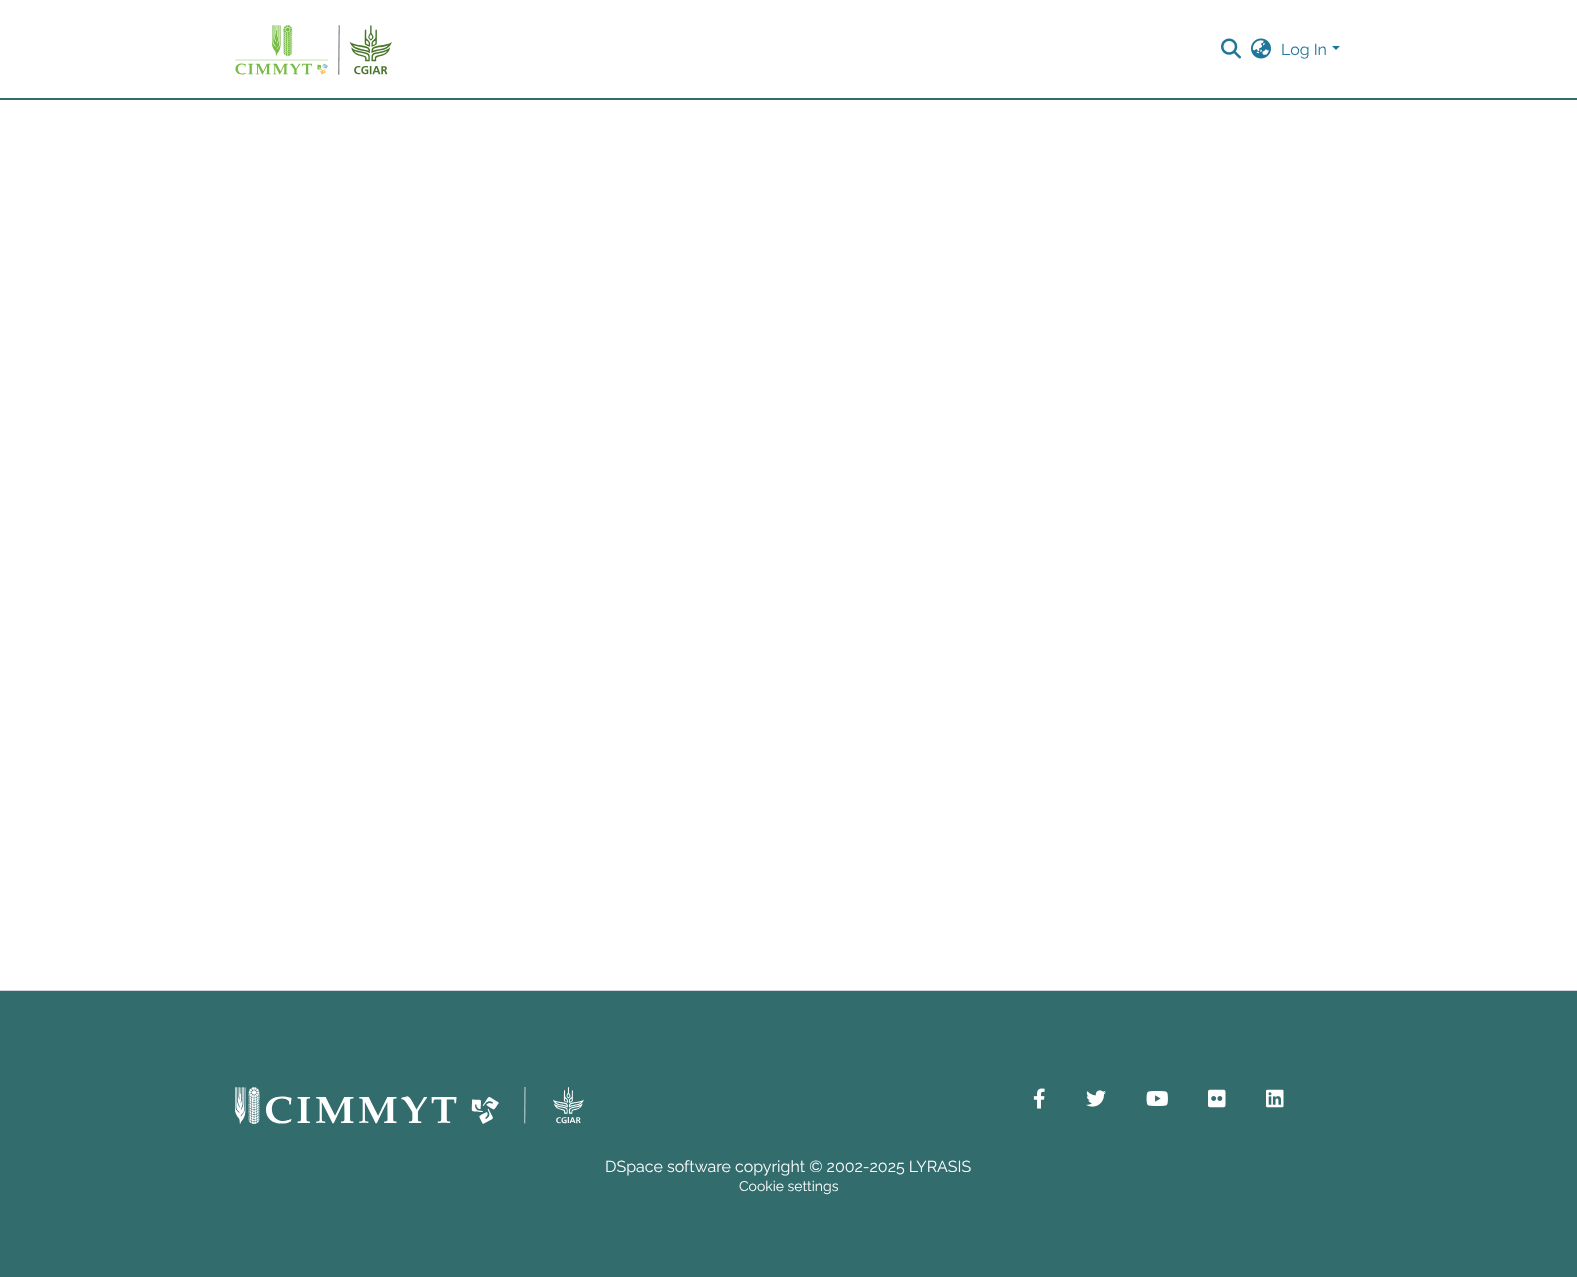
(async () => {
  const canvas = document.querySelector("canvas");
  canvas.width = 1577;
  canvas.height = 1277;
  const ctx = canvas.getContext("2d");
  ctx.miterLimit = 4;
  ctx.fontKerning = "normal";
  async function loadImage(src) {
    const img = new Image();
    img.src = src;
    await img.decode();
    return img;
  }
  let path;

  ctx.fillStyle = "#ffffff";
  ctx.fillRect(0, 0, 1577, 1277);
  ctx.fillStyle = "#336c6d";
  ctx.fillRect(0, 98, 1577, 2);
  ctx.drawImage(await loadImage("img/1.png"), 235, 25, 157, 50);
  ctx.drawImage(await loadImage("img/2.png"), 1221, 38, 20, 21);
  ctx.drawImage(await loadImage("img/3.png"), 1251, 38, 20, 21);
  ctx.fillStyle = "#207698";
  path = new Path2D("M1332 46H1340L1336 50Z");
  ctx.fill(path);
  ctx.fillStyle = "#336c6d";
  ctx.fillRect(0, 991, 1577, 286);
  ctx.fillStyle = "#ced4da";
  ctx.fillRect(0, 990, 1577, 1);
  ctx.drawImage(await loadImage("img/4.png"), 235, 1087, 349, 37);
  ctx.drawImage(await loadImage("img/5.png"), 1033, 1088, 12, 21);
  ctx.drawImage(await loadImage("img/6.png"), 1086, 1090, 20, 17);
  ctx.drawImage(await loadImage("img/7.png"), 1146, 1091, 22, 15);
  ctx.drawImage(await loadImage("img/8.png"), 1208, 1089, 18, 19);
  ctx.drawImage(await loadImage("img/9.png"), 1266, 1089, 18, 19);
  ctx.font = "100 16px Raleway";
  ctx.fillStyle = "#207698";
  ctx.fillText("Log In", 1281, 55);
  ctx.fillStyle = "#ffffff";
  ctx.fillText("DSpace software copyright © 2002-2025 LYRASIS", 605, 1172);
  ctx.font = "100 14px Raleway";
  ctx.fillText("Cookie settings", 739, 1191);
})();
